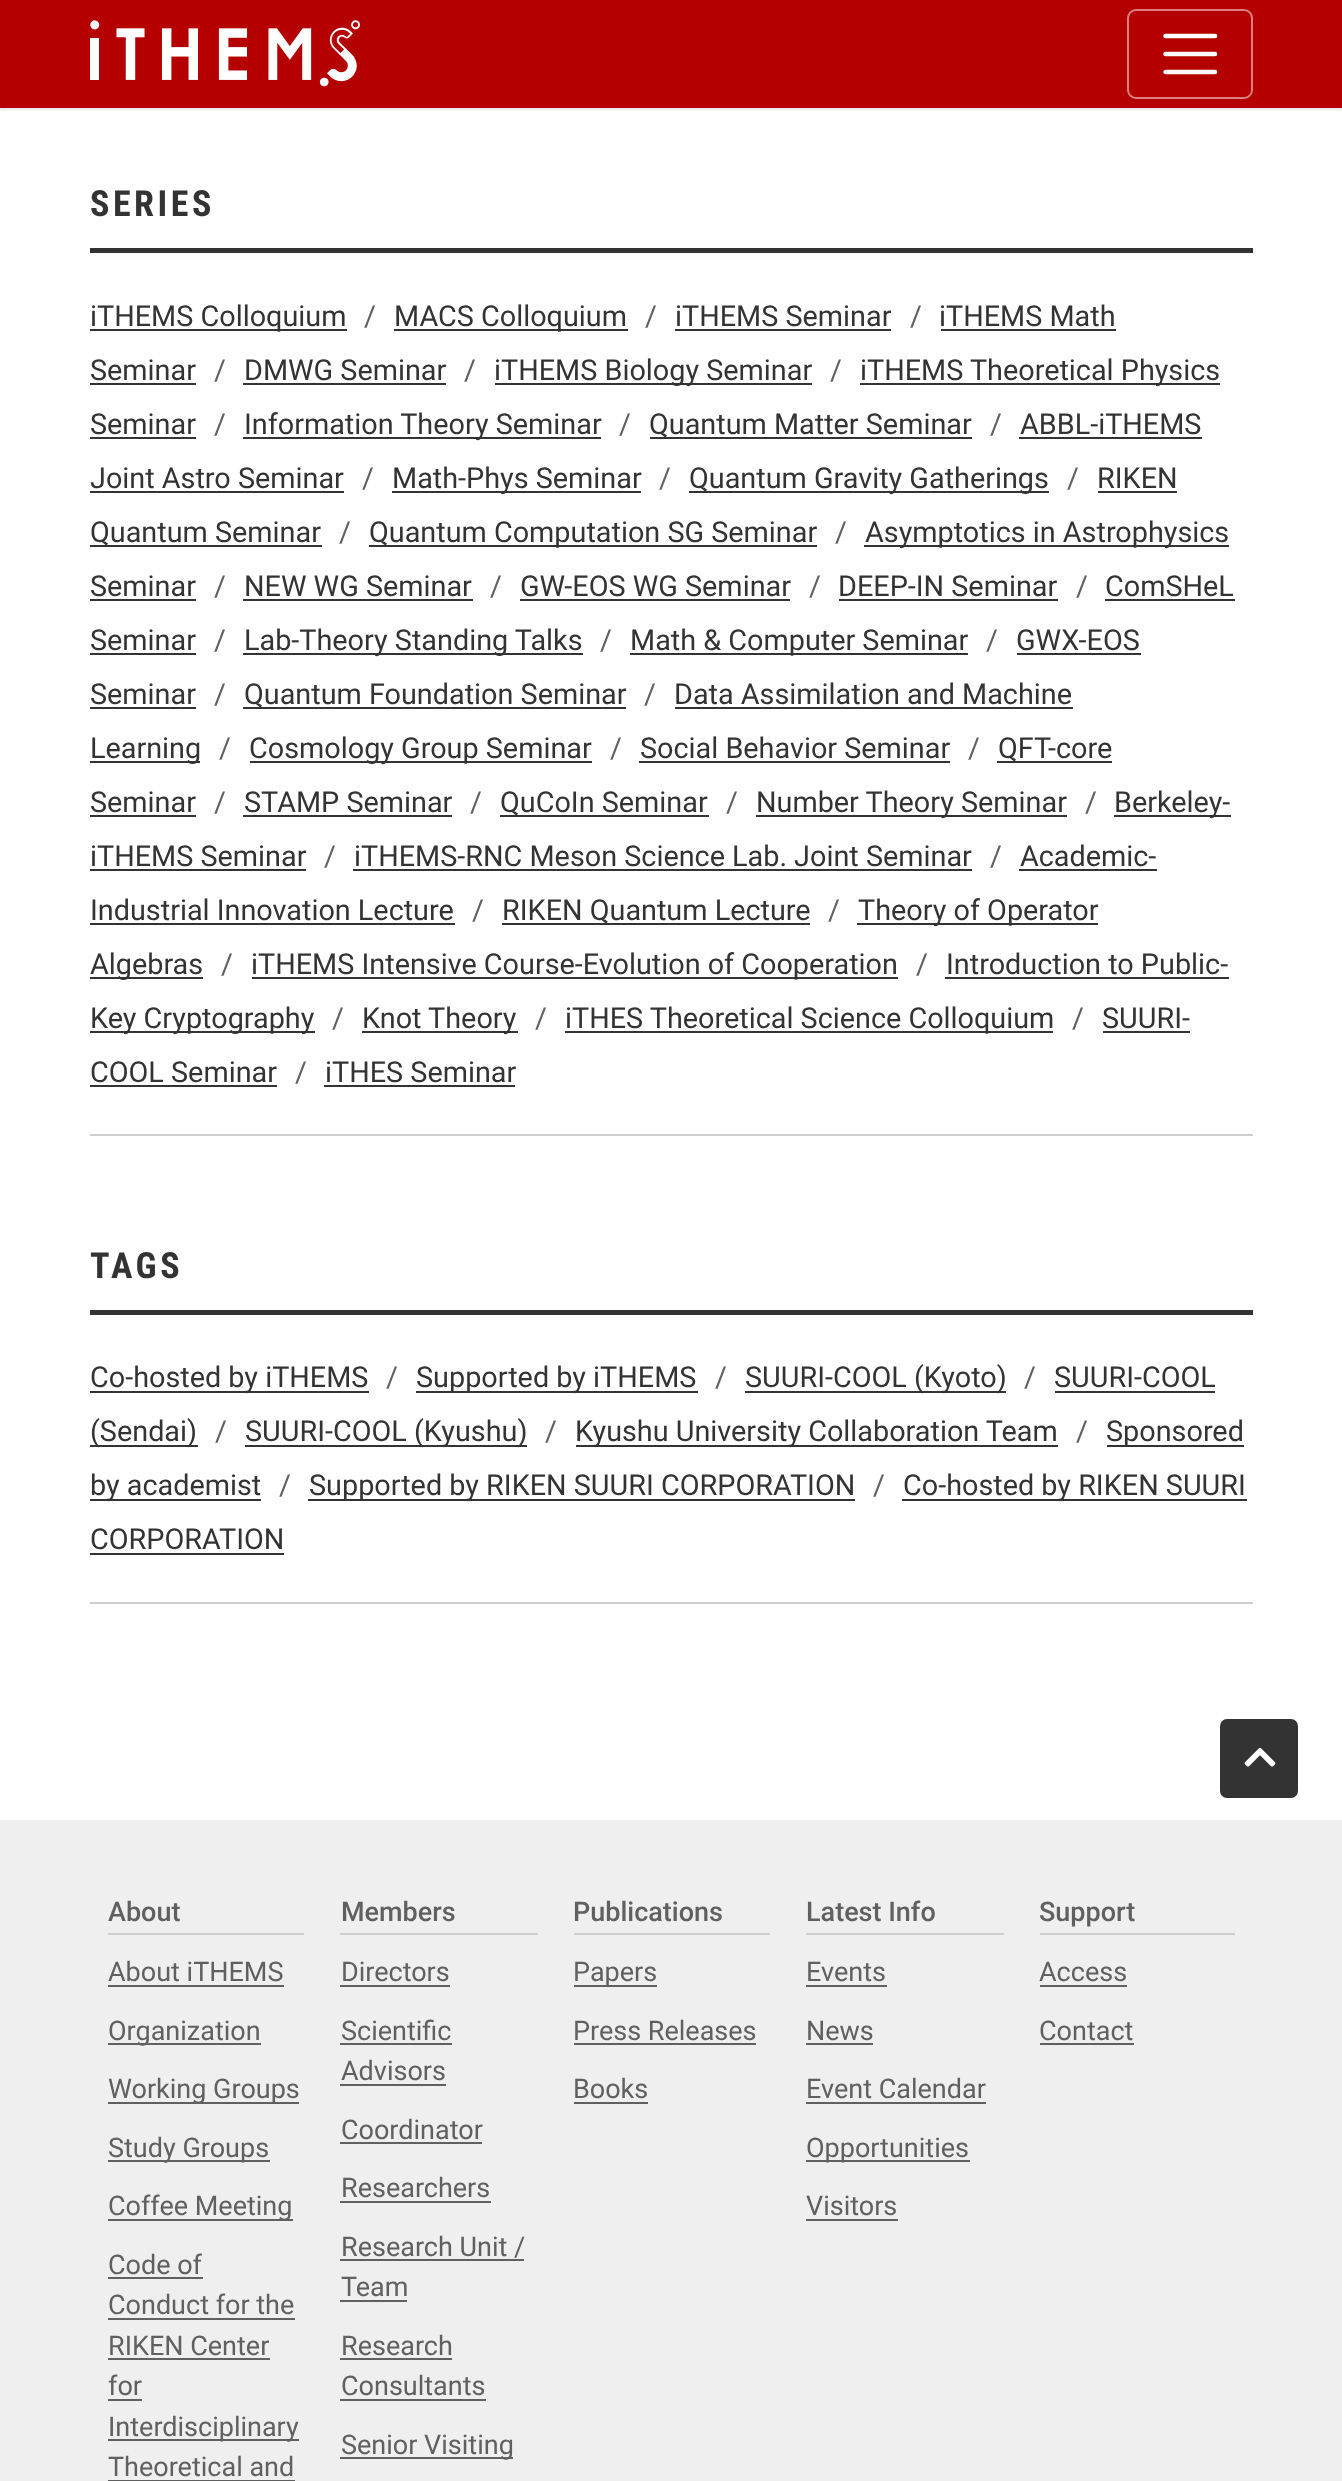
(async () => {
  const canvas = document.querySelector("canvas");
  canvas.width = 1342;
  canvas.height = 2481;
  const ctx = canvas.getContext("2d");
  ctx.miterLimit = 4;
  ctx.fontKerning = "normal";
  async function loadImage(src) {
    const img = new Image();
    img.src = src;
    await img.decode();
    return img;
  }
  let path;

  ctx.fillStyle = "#efefef";
  ctx.fillRect(0, 0, 1342, 2481);
  ctx.fillStyle = "#ffffff";
  ctx.fillRect(0, 108, 1342, 1712);
  ctx.fillStyle = "rgba(0, 0, 0, 0.1)";
  ctx.filter = "blur(1px)";
  ctx.beginPath();
  ctx.rect(0, 2, 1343, 108);
  ctx.fill();
  ctx.filter = "none";
  ctx.fillStyle = "#b50000";
  ctx.fillRect(0, 0, 1342, 108);
  ctx.drawImage(await loadImage("img/1.png"), 90, 20, 270, 67);
  ctx.beginPath();
  ctx.roundRect(1128, 10, 124, 88, 8);
  ctx.strokeStyle = "#da8080";
  ctx.lineWidth = 2;
  ctx.stroke();
  path = new Path2D("M1165.5 36H1215M1165.5 54H1215M1165.5 72H1215");
  ctx.strokeStyle = "#ffffff";
  ctx.lineWidth = 4.5;
  ctx.lineCap = "round";
  ctx.stroke(path);
  for (const [x, y, w, h, color] of [
    [90, 1134, 1163, 2, "#cecece"],
    [90, 248, 1163, 5, "#333333"],
    [90, 329, 257, 2, "#333333"],
    [394, 329, 234, 2, "#333333"],
    [675, 329, 216, 2, "#333333"],
    [941, 329, 175, 2, "#333333"],
    [90, 383, 106, 2, "#333333"],
    [243, 383, 203, 2, "#333333"],
    [495, 383, 317, 2, "#333333"],
    [860, 383, 360, 2, "#333333"],
    [90, 437, 106, 2, "#333333"],
    [243, 437, 358, 2, "#333333"],
    [650, 437, 322, 2, "#333333"],
    [1019, 437, 183, 2, "#333333"],
    [90, 491, 254, 2, "#333333"],
    [392, 491, 249, 2, "#333333"],
    [689, 491, 360, 2, "#333333"],
    [1098, 491, 79, 2, "#333333"],
    [90, 545, 232, 2, "#333333"],
    [369, 545, 448, 2, "#333333"],
    [864, 545, 365, 2, "#333333"],
    [90, 599, 106, 2, "#333333"],
    [243, 599, 230, 2, "#333333"],
    [520, 599, 270, 2, "#333333"],
    [839, 599, 219, 2, "#333333"],
    [1105, 599, 130, 2, "#333333"],
    [90, 653, 106, 2, "#333333"],
    [243, 653, 340, 2, "#333333"],
    [630, 653, 338, 2, "#333333"],
    [1017, 653, 124, 2, "#333333"],
    [90, 707, 106, 2, "#333333"],
    [243, 707, 383, 2, "#333333"],
    [675, 707, 398, 2, "#333333"],
    [90, 761, 110, 2, "#333333"],
    [250, 761, 342, 2, "#333333"],
    [639, 761, 311, 2, "#333333"],
    [997, 761, 115, 2, "#333333"],
    [90, 815, 106, 2, "#333333"],
    [243, 815, 209, 2, "#333333"],
    [500, 815, 209, 2, "#333333"],
    [756, 815, 311, 2, "#333333"],
    [1114, 815, 117, 2, "#333333"],
    [90, 869, 216, 2, "#333333"],
    [353, 869, 619, 2, "#333333"],
    [1019, 869, 138, 2, "#333333"],
    [90, 923, 365, 2, "#333333"],
    [502, 923, 308, 2, "#333333"],
    [857, 923, 241, 2, "#333333"],
    [90, 977, 113, 2, "#333333"],
    [252, 977, 646, 2, "#333333"],
    [945, 977, 284, 2, "#333333"],
    [90, 1031, 225, 2, "#333333"],
    [362, 1031, 156, 2, "#333333"],
    [565, 1031, 488, 2, "#333333"],
    [1103, 1031, 87, 2, "#333333"],
    [90, 1085, 187, 2, "#333333"],
    [324, 1085, 191, 2, "#333333"],
    [90, 1602, 1163, 2, "#cecece"],
    [90, 1310, 1163, 5, "#333333"],
    [90, 1391, 279, 2, "#333333"],
    [416, 1391, 282, 2, "#333333"],
    [745, 1391, 261, 2, "#333333"],
    [1055, 1391, 160, 2, "#333333"],
    [90, 1445, 108, 2, "#333333"],
    [245, 1445, 282, 2, "#333333"],
    [576, 1445, 482, 2, "#333333"],
    [1107, 1445, 137, 2, "#333333"],
    [90, 1499, 171, 2, "#333333"],
    [308, 1499, 547, 2, "#333333"],
    [902, 1499, 345, 2, "#333333"],
    [90, 1553, 194, 2, "#333333"],
  ]) {
    ctx.fillStyle = color;
    ctx.fillRect(x, y, w, h);
  }
  ctx.beginPath();
  ctx.roundRect(1220, 1719, 78, 79, 7);
  ctx.fill();
  ctx.drawImage(await loadImage("img/2.png"), 1244, 1747, 32, 20);
  for (const [x, y, w, h, color] of [
    [108, 1933, 196, 2, "#cecece"],
    [108, 1985, 176, 2, "#606060"],
    [108, 2043, 153, 2, "#606060"],
    [108, 2102, 191, 2, "#606060"],
    [108, 2160, 162, 2, "#606060"],
    [108, 2219, 185, 2, "#606060"],
    [108, 2277, 95, 2, "#606060"],
    [108, 2318, 187, 2, "#606060"],
    [108, 2358, 162, 2, "#606060"],
    [108, 2399, 34, 2, "#606060"],
    [108, 2439, 191, 2, "#606060"],
    [108, 2480, 187, 1, "#606060"],
    [340, 1933, 198, 2, "#cecece"],
    [340, 1985, 110, 2, "#606060"],
    [340, 2043, 112, 2, "#606060"],
    [340, 2084, 106, 2, "#606060"],
    [340, 2142, 142, 2, "#606060"],
    [340, 2201, 151, 2, "#606060"],
    [340, 2259, 184, 2, "#606060"],
    [340, 2300, 67, 2, "#606060"],
    [340, 2358, 112, 2, "#606060"],
    [340, 2399, 146, 2, "#606060"],
    [340, 2457, 173, 2, "#606060"],
    [574, 1933, 196, 2, "#cecece"],
    [574, 1985, 83, 2, "#606060"],
    [574, 2043, 182, 2, "#606060"],
    [574, 2102, 74, 2, "#606060"],
    [806, 1933, 198, 2, "#cecece"],
    [806, 1985, 81, 2, "#606060"],
    [806, 2043, 67, 2, "#606060"],
    [806, 2102, 180, 2, "#606060"],
    [806, 2160, 164, 2, "#606060"],
    [806, 2219, 92, 2, "#606060"],
    [1040, 1933, 195, 2, "#cecece"],
    [1040, 1985, 87, 2, "#606060"],
    [1040, 2043, 94, 2, "#606060"],
  ]) {
    ctx.fillStyle = color;
    ctx.fillRect(x, y, w, h);
  }
  ctx.letterSpacing = "3.5px";
  ctx.font = "bold 36px Roboto Condensed";
  ctx.fillStyle = "#333333";
  ctx.fillText("SERIES", 90, 216);
  ctx.letterSpacing = "0px";
  ctx.font = "28.8px Roboto";
  ctx.fillText("iTHEMS Colloquium", 90, 326);
  ctx.fillStyle = "#606060";
  ctx.fillText("/", 364, 326);
  ctx.fillStyle = "#333333";
  ctx.fillText("MACS Colloquium", 394, 326);
  ctx.fillStyle = "#606060";
  ctx.fillText("/", 645, 326);
  ctx.fillStyle = "#333333";
  ctx.fillText("iTHEMS Seminar", 675, 326);
  ctx.fillStyle = "#606060";
  ctx.fillText("/", 910, 326);
  ctx.fillStyle = "#333333";
  ctx.fillText("iTHEMS Math", 939, 326);
  ctx.fillText("Seminar", 90, 380);
  ctx.fillStyle = "#606060";
  ctx.fillText("/", 214, 380);
  ctx.fillStyle = "#333333";
  ctx.fillText("DMWG Seminar", 244, 380);
  ctx.fillStyle = "#606060";
  ctx.fillText("/", 464, 380);
  ctx.fillStyle = "#333333";
  ctx.fillText("iTHEMS Biology Seminar", 494, 380);
  ctx.fillStyle = "#606060";
  ctx.fillText("/", 830, 380);
  ctx.fillStyle = "#333333";
  ctx.fillText("iTHEMS Theoretical Physics", 860, 380);
  ctx.fillText("Seminar", 90, 434);
  ctx.fillStyle = "#606060";
  ctx.fillText("/", 214, 434);
  ctx.fillStyle = "#333333";
  ctx.fillText("Information Theory Seminar", 244, 434);
  ctx.fillStyle = "#606060";
  ctx.fillText("/", 619, 434);
  ctx.fillStyle = "#333333";
  ctx.fillText("Quantum Matter Seminar", 649, 434);
  ctx.fillStyle = "#606060";
  ctx.fillText("/", 990, 434);
  ctx.fillStyle = "#333333";
  ctx.fillText("ABBL-iTHEMS", 1020, 434);
  ctx.fillText("Joint Astro Seminar", 90, 488);
  ctx.fillStyle = "#606060";
  ctx.fillText("/", 362, 488);
  ctx.fillStyle = "#333333";
  ctx.fillText("Math-Phys Seminar", 392, 488);
  ctx.fillStyle = "#606060";
  ctx.fillText("/", 659, 488);
  ctx.fillStyle = "#333333";
  ctx.fillText("Quantum Gravity Gatherings", 689, 488);
  ctx.fillStyle = "#606060";
  ctx.fillText("/", 1067, 488);
  ctx.fillStyle = "#333333";
  ctx.fillText("RIKEN", 1097, 488);
  ctx.fillText("Quantum Seminar", 90, 542);
  ctx.fillStyle = "#606060";
  ctx.fillText("/", 339, 542);
  ctx.fillStyle = "#333333";
  ctx.fillText("Quantum Computation SG Seminar", 369, 542);
  ctx.fillStyle = "#606060";
  ctx.fillText("/", 835, 542);
  ctx.fillStyle = "#333333";
  ctx.fillText("Asymptotics in Astrophysics", 865, 542);
  ctx.fillText("Seminar", 90, 596);
  ctx.fillStyle = "#606060";
  ctx.fillText("/", 214, 596);
  ctx.fillStyle = "#333333";
  ctx.fillText("NEW WG Seminar", 244, 596);
  ctx.fillStyle = "#606060";
  ctx.fillText("/", 490, 596);
  ctx.fillStyle = "#333333";
  ctx.fillText("GW-EOS WG Seminar", 520, 596);
  ctx.fillStyle = "#606060";
  ctx.fillText("/", 809, 596);
  ctx.fillStyle = "#333333";
  ctx.fillText("DEEP-IN Seminar", 838, 596);
  ctx.fillStyle = "#606060";
  ctx.fillText("/", 1076, 596);
  ctx.fillStyle = "#333333";
  ctx.fillText("ComSHeL", 1105, 596);
  ctx.fillText("Seminar", 90, 650);
  ctx.fillStyle = "#606060";
  ctx.fillText("/", 214, 650);
  ctx.fillStyle = "#333333";
  ctx.fillText("Lab-Theory Standing Talks", 244, 650);
  ctx.fillStyle = "#606060";
  ctx.fillText("/", 600, 650);
  ctx.fillStyle = "#333333";
  ctx.fillText("Math & Computer Seminar", 630, 650);
  ctx.fillStyle = "#606060";
  ctx.fillText("/", 986, 650);
  ctx.fillStyle = "#333333";
  ctx.fillText("GWX-EOS", 1016, 650);
  ctx.fillText("Seminar", 90, 704);
  ctx.fillStyle = "#606060";
  ctx.fillText("/", 214, 704);
  ctx.fillStyle = "#333333";
  ctx.fillText("Quantum Foundation Seminar", 244, 704);
  ctx.fillStyle = "#606060";
  ctx.fillText("/", 644, 704);
  ctx.fillStyle = "#333333";
  ctx.fillText("Data Assimilation and Machine", 674, 704);
  ctx.fillText("Learning", 90, 758);
  ctx.fillStyle = "#606060";
  ctx.fillText("/", 219, 758);
  ctx.fillStyle = "#333333";
  ctx.fillText("Cosmology Group Seminar", 249, 758);
  ctx.fillStyle = "#606060";
  ctx.fillText("/", 610, 758);
  ctx.fillStyle = "#333333";
  ctx.fillText("Social Behavior Seminar", 640, 758);
  ctx.fillStyle = "#606060";
  ctx.fillText("/", 968, 758);
  ctx.fillStyle = "#333333";
  ctx.fillText("QFT-core", 998, 758);
  ctx.fillText("Seminar", 90, 812);
  ctx.fillStyle = "#606060";
  ctx.fillText("/", 214, 812);
  ctx.fillStyle = "#333333";
  ctx.fillText("STAMP Seminar", 244, 812);
  ctx.fillStyle = "#606060";
  ctx.fillText("/", 470, 812);
  ctx.fillStyle = "#333333";
  ctx.fillText("QuCoIn Seminar", 500, 812);
  ctx.fillStyle = "#606060";
  ctx.fillText("/", 726, 812);
  ctx.fillStyle = "#333333";
  ctx.fillText("Number Theory Seminar", 756, 812);
  ctx.fillStyle = "#606060";
  ctx.fillText("/", 1085, 812);
  ctx.fillStyle = "#333333";
  ctx.fillText("Berkeley-", 1114, 812);
  ctx.fillText("iTHEMS Seminar", 90, 866);
  ctx.fillStyle = "#606060";
  ctx.fillText("/", 324, 866);
  ctx.fillStyle = "#333333";
  ctx.fillText("iTHEMS-RNC Meson Science Lab. Joint Seminar", 354, 866);
  ctx.fillStyle = "#606060";
  ctx.fillText("/", 990, 866);
  ctx.fillStyle = "#333333";
  ctx.fillText("Academic-", 1020, 866);
  ctx.fillText("Industrial Innovation Lecture", 90, 920);
  ctx.fillStyle = "#606060";
  ctx.fillText("/", 472, 920);
  ctx.fillStyle = "#333333";
  ctx.fillText("RIKEN Quantum Lecture", 502, 920);
  ctx.fillStyle = "#606060";
  ctx.fillText("/", 828, 920);
  ctx.fillStyle = "#333333";
  ctx.fillText("Theory of Operator", 858, 920);
  ctx.fillText("Algebras", 90, 974);
  ctx.fillStyle = "#606060";
  ctx.fillText("/", 221, 974);
  ctx.fillStyle = "#333333";
  ctx.fillText("iTHEMS Intensive Course-Evolution of Cooperation", 251, 974);
  ctx.fillStyle = "#606060";
  ctx.fillText("/", 916, 974);
  ctx.fillStyle = "#333333";
  ctx.fillText("Introduction to Public-", 946, 974);
  ctx.fillText("Key Cryptography", 90, 1028);
  ctx.fillStyle = "#606060";
  ctx.fillText("/", 332, 1028);
  ctx.fillStyle = "#333333";
  ctx.fillText("Knot Theory", 362, 1028);
  ctx.fillStyle = "#606060";
  ctx.fillText("/", 535, 1028);
  ctx.fillStyle = "#333333";
  ctx.fillText("iTHES Theoretical Science Colloquium", 565, 1028);
  ctx.fillStyle = "#606060";
  ctx.fillText("/", 1072, 1028);
  ctx.fillStyle = "#333333";
  ctx.fillText("SUURI-", 1102, 1028);
  ctx.fillText("COOL Seminar", 90, 1082);
  ctx.fillStyle = "#606060";
  ctx.fillText("/", 295, 1082);
  ctx.fillStyle = "#333333";
  ctx.fillText("iTHES Seminar", 325, 1082);
  ctx.letterSpacing = "3.5px";
  ctx.font = "bold 36px Roboto Condensed";
  ctx.fillText("TAGS", 90, 1278);
  ctx.letterSpacing = "0px";
  ctx.font = "28.8px Roboto";
  ctx.fillText("Co-hosted by iTHEMS", 90, 1387);
  ctx.fillStyle = "#606060";
  ctx.fillText("/", 386, 1387);
  ctx.fillStyle = "#333333";
  ctx.fillText("Supported by iTHEMS", 416, 1387);
  ctx.fillStyle = "#606060";
  ctx.fillText("/", 715, 1387);
  ctx.fillStyle = "#333333";
  ctx.fillText("SUURI-COOL (Kyoto)", 745, 1387);
  ctx.fillStyle = "#606060";
  ctx.fillText("/", 1024, 1387);
  ctx.fillStyle = "#333333";
  ctx.fillText("SUURI-COOL", 1054, 1387);
  ctx.fillText("(Sendai)", 90, 1441);
  ctx.fillStyle = "#606060";
  ctx.fillText("/", 215, 1441);
  ctx.fillStyle = "#333333";
  ctx.fillText("SUURI-COOL (Kyushu)", 245, 1441);
  ctx.fillStyle = "#606060";
  ctx.fillText("/", 545, 1441);
  ctx.fillStyle = "#333333";
  ctx.fillText("Kyushu University Collaboration Team", 575, 1441);
  ctx.fillStyle = "#606060";
  ctx.fillText("/", 1076, 1441);
  ctx.fillStyle = "#333333";
  ctx.fillText("Sponsored", 1106, 1441);
  ctx.fillText("by academist", 90, 1495);
  ctx.fillStyle = "#606060";
  ctx.fillText("/", 279, 1495);
  ctx.fillStyle = "#333333";
  ctx.fillText("Supported by RIKEN SUURI CORPORATION", 309, 1495);
  ctx.fillStyle = "#606060";
  ctx.fillText("/", 873, 1495);
  ctx.fillStyle = "#333333";
  ctx.fillText("Co-hosted by RIKEN SUURI", 903, 1495);
  ctx.fillText("CORPORATION", 90, 1549);
  ctx.font = "500 27px Roboto";
  ctx.fillStyle = "#606060";
  ctx.fillText("About", 108, 1921);
  ctx.font = "27px Roboto";
  for (const [text, x, y] of [
    ["About iTHEMS", 108, 1981],
    ["Organization", 108, 2040],
    ["Working Groups", 108, 2098],
    ["Study Groups", 108, 2157],
    ["Coffee Meeting", 108, 2215],
    ["Code of", 108, 2274],
    ["Conduct for the", 108, 2314],
    ["RIKEN Center", 108, 2355],
    ["for", 108, 2395],
    ["Interdisciplinary", 108, 2436],
    ["Theoretical and", 108, 2476],
  ]) {
    ctx.fillText(text, x, y);
  }
  ctx.font = "500 27px Roboto";
  ctx.fillText("Members", 341, 1921);
  ctx.font = "27px Roboto";
  for (const [text, x, y] of [
    ["Directors", 341, 1981],
    ["Scientific", 341, 2040],
    ["Advisors", 341, 2080],
    ["Coordinator", 341, 2139],
    ["Researchers", 341, 2197],
    ["Research Unit /", 341, 2256],
    ["Team", 341, 2296],
    ["Research", 341, 2355],
    ["Consultants", 341, 2395],
    ["Senior Visiting", 341, 2454],
  ]) {
    ctx.fillText(text, x, y);
  }
  ctx.font = "500 27px Roboto";
  ctx.fillText("Publications", 573, 1921);
  ctx.font = "27px Roboto";
  for (const [text, x, y] of [
    ["Papers", 573, 1981],
    ["Press Releases", 573, 2040],
    ["Books", 573, 2098],
  ]) {
    ctx.fillText(text, x, y);
  }
  ctx.font = "500 27px Roboto";
  ctx.fillText("Latest Info", 806, 1921);
  ctx.font = "27px Roboto";
  for (const [text, x, y] of [
    ["Events", 806, 1981],
    ["News", 806, 2040],
    ["Event Calendar", 806, 2098],
    ["Opportunities", 806, 2157],
    ["Visitors", 806, 2215],
  ]) {
    ctx.fillText(text, x, y);
  }
  ctx.font = "500 27px Roboto";
  ctx.fillText("Support", 1039, 1921);
  ctx.font = "27px Roboto";
  ctx.fillText("Access", 1039, 1981);
  ctx.fillText("Contact", 1039, 2040);
})();
